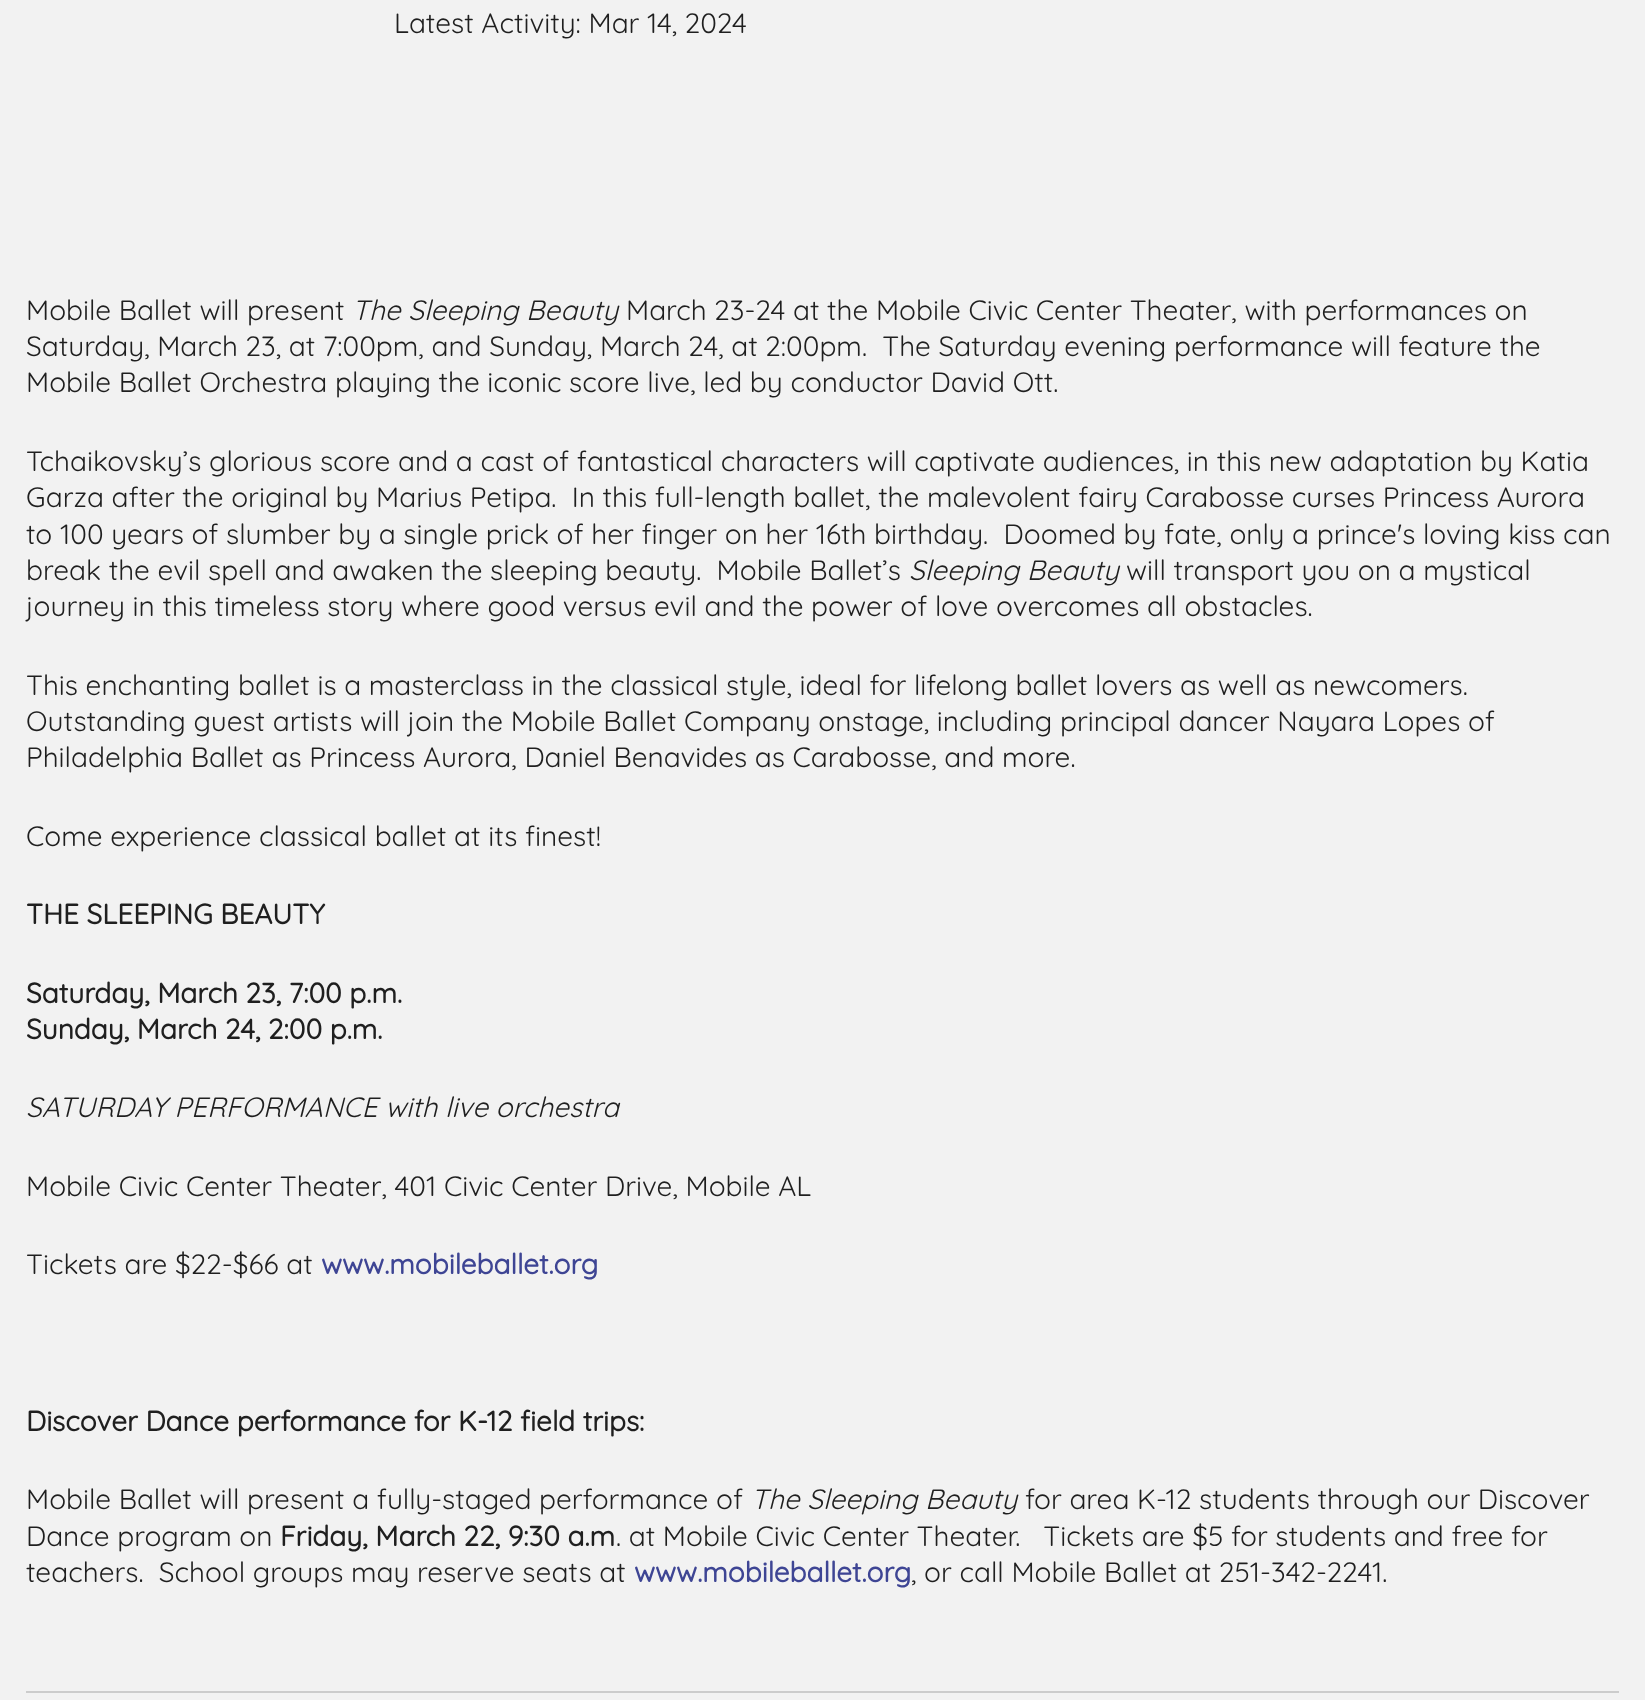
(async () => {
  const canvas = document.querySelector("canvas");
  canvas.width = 1645;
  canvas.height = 1700;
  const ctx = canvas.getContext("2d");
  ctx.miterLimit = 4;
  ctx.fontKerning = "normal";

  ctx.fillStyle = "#f2f2f2";
  ctx.fillRect(0, 0, 1645, 1700);
  ctx.fillStyle = "#cccccc";
  ctx.fillRect(26, 1691, 1593, 2);
  ctx.font = "300 28px Quicksand";
  ctx.fillStyle = "#1f1f1f";
  ctx.fillText("Latest Activity: Mar 14, 2024", 394, 33);
  ctx.fillText("Mobile Ballet will present", 26, 320);
  ctx.font = "italic 300 28px Quicksand";
  ctx.fillText("The Sleeping Beauty", 352, 320);
  ctx.font = "300 28px Quicksand";
  for (const [text, x, y] of [
    ["March 23-24 at the Mobile Civic Center Theater, with performances on", 626, 320],
    ["Saturday, March 23, at 7:00pm, and Sunday, March 24, at 2:00pm.  The Saturday evening performance will feature the", 26, 356],
    ["Mobile Ballet Orchestra playing the iconic score live, led by conductor David Ott.", 26, 392],
    ["Tchaikovsky’s glorious score and a cast of fantastical characters will captivate audiences, in this new adaptation by Katia", 26, 471],
    ["Garza after the original by Marius Petipa.  In this full-length ballet, the malevolent fairy Carabosse curses Princess Aurora", 26, 507],
    ["to 100 years of slumber by a single prick of her finger on her 16th birthday.  Doomed by fate, only a prince's loving kiss can", 26, 544],
    ["break the evil spell and awaken the sleeping beauty.  Mobile Ballet’s", 26, 580],
  ]) {
    ctx.fillText(text, x, y);
  }
  ctx.font = "italic 300 28px Quicksand";
  ctx.fillText("Sleeping Beauty", 909, 580);
  ctx.font = "300 28px Quicksand";
  for (const [text, x, y] of [
    ["will transport you on a mystical", 1126, 580],
    ["journey in this timeless story where good versus evil and the power of love overcomes all obstacles.", 26, 616],
    ["This enchanting ballet is a masterclass in the classical style, ideal for lifelong ballet lovers as well as newcomers.", 26, 695],
    ["Outstanding guest artists will join the Mobile Ballet Company onstage, including principal dancer Nayara Lopes of", 26, 731],
    ["Philadelphia Ballet as Princess Aurora, Daniel Benavides as Carabosse, and more.", 26, 767],
    ["Come experience classical ballet at its finest!", 26, 846],
  ]) {
    ctx.fillText(text, x, y);
  }
  ctx.font = "bold 28px Quicksand";
  for (const [text, x, y] of [
    ["THE SLEEPING BEAUTY", 26, 924],
    ["Saturday, March 23, 7:00 p.m.", 26, 1003],
    ["Sunday, March 24, 2:00 p.m.", 26, 1039],
  ]) {
    ctx.fillText(text, x, y);
  }
  ctx.font = "italic 300 28px Quicksand";
  ctx.fillText("SATURDAY PERFORMANCE with live orchestra", 26, 1117);
  ctx.font = "300 28px Quicksand";
  ctx.fillText("Mobile Civic Center Theater, 401 Civic Center Drive, Mobile AL", 26, 1196);
  ctx.fillText("Tickets are $22-$66 at", 26, 1274);
  ctx.font = "bold 28px Quicksand";
  ctx.fillStyle = "#3e4594";
  ctx.fillText("www.mobileballet.org", 321, 1274);
  ctx.fillStyle = "#1f1f1f";
  ctx.fillText("Discover Dance performance for K-12 field trips:", 26, 1431);
  ctx.font = "300 28px Quicksand";
  ctx.fillText("Mobile Ballet will present a fully-staged performance of", 26, 1509);
  ctx.font = "italic 300 28px Quicksand";
  ctx.fillText("The Sleeping Beauty", 751, 1509);
  ctx.font = "300 28px Quicksand";
  ctx.fillText("for area K-12 students through our Discover", 1025, 1509);
  ctx.fillText("Dance program on", 26, 1546);
  ctx.font = "bold 28px Quicksand";
  ctx.fillText("Friday, March 22, 9:30 a.m", 280, 1546);
  ctx.font = "300 28px Quicksand";
  ctx.fillText(". at Mobile Civic Center Theater.   Tickets are $5 for students and free for", 616, 1546);
  ctx.fillText("teachers.  School groups may reserve seats at", 26, 1582);
  ctx.font = "bold 28px Quicksand";
  ctx.fillStyle = "#3e4594";
  ctx.fillText("www.mobileballet.org", 634, 1582);
  ctx.font = "300 28px Quicksand";
  ctx.fillStyle = "#1f1f1f";
  ctx.fillText(", or call Mobile Ballet at 251-342-2241.", 911, 1582);
})();
